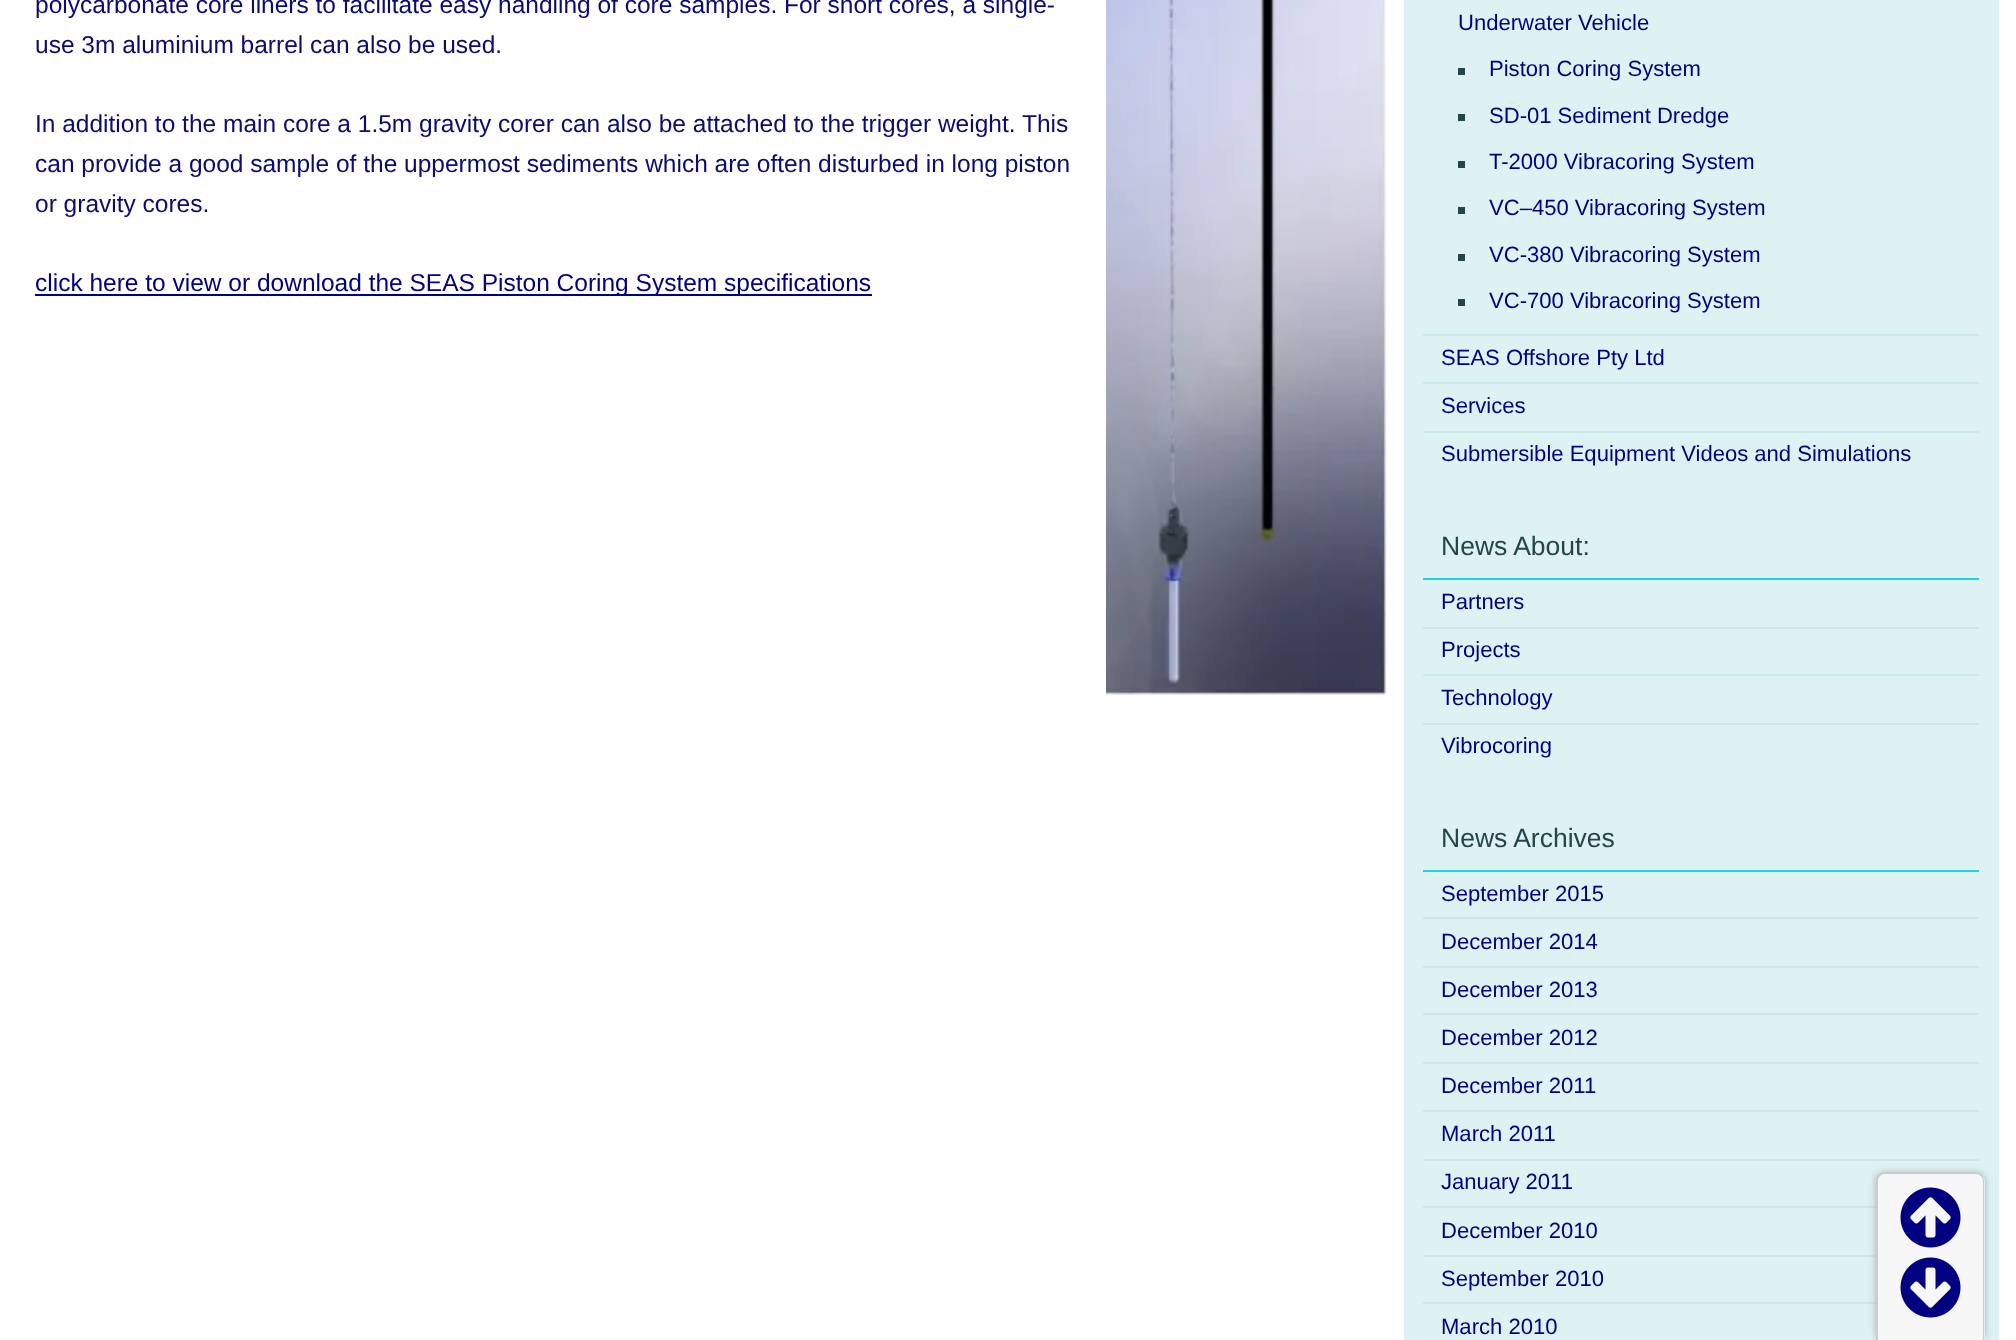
(async () => {
  const canvas = document.querySelector("canvas");
  canvas.width = 2016;
  canvas.height = 1340;
  const ctx = canvas.getContext("2d");
  ctx.miterLimit = 4;
  ctx.fontKerning = "normal";
  async function loadImage(src) {
    const img = new Image();
    img.src = src;
    await img.decode();
    return img;
  }
  let path;

  ctx.fillStyle = "#ffffff";
  ctx.fillRect(0, 0, 2016, 1340);
  ctx.drawImage(await loadImage("img/1.png"), 1106, 0, 280, 695);
  for (const [x, y, w, h, color] of [
    [35, 294, 837, 2, "#010080"],
    [1404, 0, 595, 1340, "#def2f3"],
    [1423, 334, 556, 2, "#cae8eb"],
    [1458, 68, 7, 7, "#24454c"],
    [1458, 114, 7, 7, "#24454c"],
    [1458, 161, 7, 7, "#24454c"],
    [1458, 207, 7, 7, "#24454c"],
    [1458, 254, 7, 7, "#24454c"],
    [1458, 299, 7, 7, "#24454c"],
    [1423, 382, 556, 2, "#cae8eb"],
    [1423, 431, 556, 2, "#cae8eb"],
    [1423, 578, 556, 2, "#1ad3f1"],
    [1423, 627, 556, 2, "#cae8eb"],
    [1423, 674, 556, 2, "#cae8eb"],
    [1423, 723, 556, 2, "#cae8eb"],
    [1423, 870, 556, 2, "#1ad3f1"],
    [1423, 917, 556, 2, "#cae8eb"],
    [1423, 966, 556, 2, "#cae8eb"],
    [1423, 1013, 556, 2, "#cae8eb"],
    [1423, 1062, 556, 2, "#cae8eb"],
    [1423, 1110, 556, 2, "#cae8eb"],
    [1423, 1159, 556, 2, "#cae8eb"],
    [1423, 1206, 453, 2, "#cae8eb"],
    [1423, 1255, 453, 2, "#cae8eb"],
    [1423, 1302, 453, 2, "#cae8eb"],
  ]) {
    ctx.fillStyle = color;
    ctx.fillRect(x, y, w, h);
  }
  ctx.save();
  path = new Path2D("M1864 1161H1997V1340H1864ZM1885 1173H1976C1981 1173 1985 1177 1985 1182V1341H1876V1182C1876 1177 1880 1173 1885 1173Z");
  ctx.clip(path, "evenodd");
  ctx.fillStyle = "#aaaaaa";
  ctx.filter = "blur(3.5px)";
  ctx.beginPath();
  ctx.roundRect(1876, 1173, 109, 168, 9);
  ctx.fill();
  ctx.filter = "none";
  ctx.restore();
  ctx.fillStyle = "#f7f7f7";
  path = new Path2D("M1885 1174H1976C1980 1174 1983 1177 1983 1181V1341H1878V1181C1878 1177 1881 1174 1885 1174Z");
  ctx.fill(path);
  ctx.fillStyle = "#cccccc";
  path = new Path2D("M1885 1172H1976C1981 1172 1984 1176 1984 1181V1340H1876V1181C1876 1176 1880 1172 1885 1172ZM1885 1174H1976C1980 1174 1983 1177 1983 1181V1340H1878V1181C1878 1177 1881 1174 1885 1174Z");
  ctx.fill(path, "evenodd");
  ctx.drawImage(await loadImage("img/2.png"), 1900, 1187, 61, 61);
  ctx.drawImage(await loadImage("img/3.png"), 1900, 1257, 61, 61);
  ctx.font = "24.5px Liberation Sans";
  ctx.fillStyle = "#0b0b70";
  for (const [text, x, y] of [
    ["polycarbonate core liners to facilitate easy handling of core samples. For short cores, a single-", 35, 13],
    ["use 3m aluminium barrel can also be used.", 35, 53],
    ["In addition to the main core a 1.5m gravity corer can also be attached to the trigger weight. This", 35, 132],
    ["can provide a good sample of the uppermost sediments which are often disturbed in long piston", 35, 172],
    ["or gravity cores.", 35, 212],
  ]) {
    ctx.fillText(text, x, y);
  }
  ctx.fillStyle = "#010080";
  ctx.fillText("click here to view or download the SEAS Piston Coring System specifications", 35, 291);
  ctx.font = "22.05px Liberation Sans";
  for (const [text, x, y] of [
    ["Underwater Vehicle", 1458, 30],
    ["Piston Coring System", 1489, 76],
    ["SD-01 Sediment Dredge", 1489, 123],
    ["T-2000 Vibracoring System", 1489, 169],
    ["VC–450 Vibracoring System", 1489, 215],
    ["VC-380 Vibracoring System", 1489, 262],
    ["VC-700 Vibracoring System", 1489, 308],
    ["SEAS Offshore Pty Ltd", 1441, 365],
    ["Services", 1441, 413],
    ["Submersible Equipment Videos and Simulations", 1441, 461],
  ]) {
    ctx.fillText(text, x, y);
  }
  ctx.font = "26.5px Liberation Sans";
  ctx.fillStyle = "#24454c";
  ctx.fillText("News About:", 1441, 555);
  ctx.font = "22.05px Liberation Sans";
  ctx.fillStyle = "#010080";
  for (const [text, x, y] of [
    ["Partners", 1441, 609],
    ["Projects", 1441, 657],
    ["Technology", 1441, 705],
    ["Vibrocoring", 1441, 753],
  ]) {
    ctx.fillText(text, x, y);
  }
  ctx.font = "26.5px Liberation Sans";
  ctx.fillStyle = "#24454c";
  ctx.fillText("News Archives", 1441, 847);
  ctx.font = "22.05px Liberation Sans";
  ctx.fillStyle = "#010080";
  for (const [text, x, y] of [
    ["September 2015", 1441, 901],
    ["December 2014", 1441, 949],
    ["December 2013", 1441, 997],
    ["December 2012", 1441, 1045],
    ["December 2011", 1441, 1093],
    ["March 2011", 1441, 1141],
    ["January 2011", 1441, 1189],
    ["December 2010", 1441, 1238],
    ["September 2010", 1441, 1286],
    ["March 2010", 1441, 1334],
  ]) {
    ctx.fillText(text, x, y);
  }
})();
